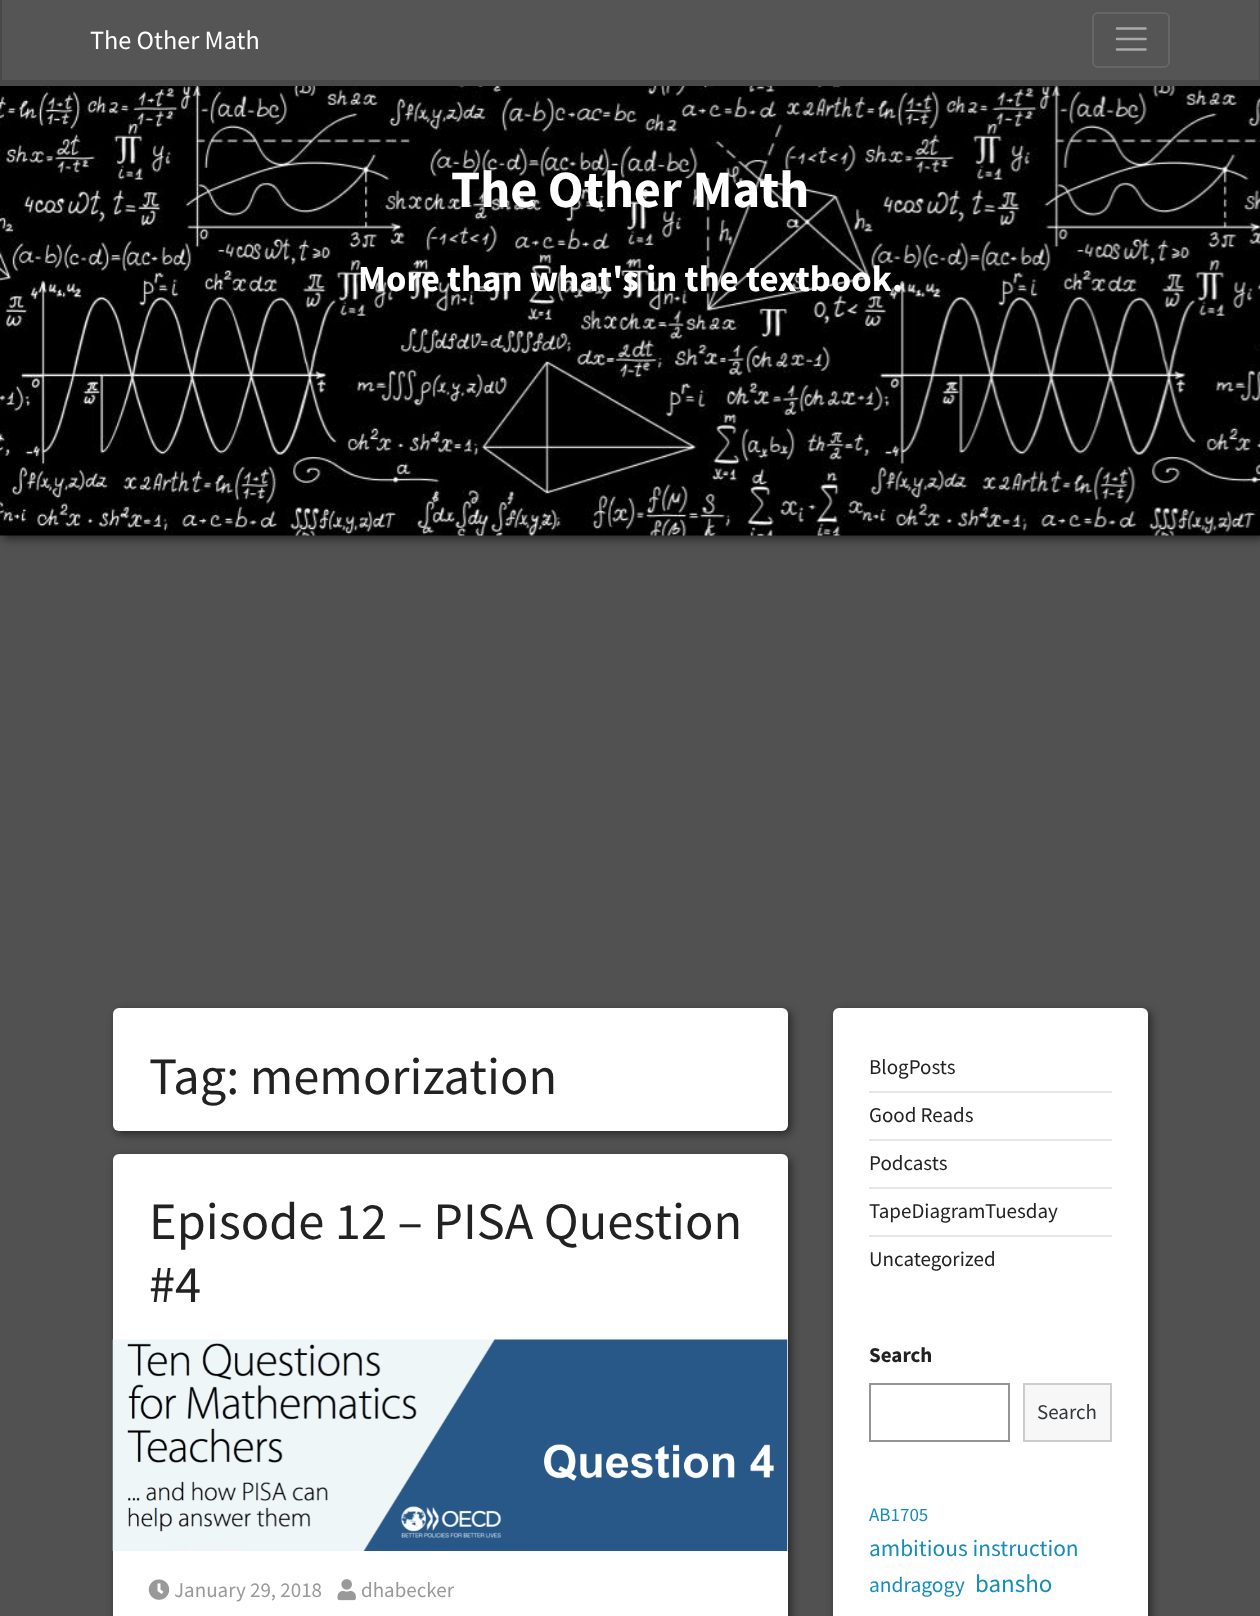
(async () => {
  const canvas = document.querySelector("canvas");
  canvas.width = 1260;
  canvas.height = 1616;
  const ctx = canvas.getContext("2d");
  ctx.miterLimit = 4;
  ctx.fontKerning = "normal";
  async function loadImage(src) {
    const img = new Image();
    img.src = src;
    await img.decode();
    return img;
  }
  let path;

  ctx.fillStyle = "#515151";
  ctx.fillRect(0, 0, 1260, 1616);
  ctx.fillStyle = "rgba(0, 0, 0, 0.5)";
  ctx.filter = "blur(4px)";
  ctx.beginPath();
  ctx.rect(3, 89, 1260, 450);
  ctx.fill();
  ctx.filter = "none";
  for (const [x, y, w, h, color] of [
    [2, 0, 1257, 80, "#555555"],
    [1259, 0, 1, 86, "#484848"],
    [0, 80, 1260, 6, "#484848"],
    [0, 0, 2, 86, "#484848"],
  ]) {
    ctx.fillStyle = color;
    ctx.fillRect(x, y, w, h);
  }
  ctx.beginPath();
  ctx.roundRect(1093, 13, 76, 54, 5);
  ctx.strokeStyle = "#666666";
  ctx.lineWidth = 2;
  ctx.stroke();
  path = new Path2D("M1117 28.5H1145.5M1117 39H1145.5M1117 49.5H1145.5");
  ctx.strokeStyle = "#aaaaaa";
  ctx.lineWidth = 2.6;
  ctx.lineCap = "round";
  ctx.stroke(path);
  ctx.drawImage(await loadImage("img/1.png"), 0, 86, 1260, 450);
  ctx.fillStyle = "rgba(0, 0, 0, 0.5)";
  ctx.filter = "blur(4px)";
  ctx.beginPath();
  ctx.roundRect(116, 1011, 675, 123, 6);
  ctx.fill();
  ctx.filter = "none";
  ctx.fillStyle = "#ffffff";
  ctx.beginPath();
  ctx.roundRect(113, 1008, 675, 123, 6);
  ctx.fill();
  ctx.fillStyle = "rgba(0, 0, 0, 0.5)";
  ctx.filter = "blur(4px)";
  ctx.beginPath();
  ctx.roundRect(116, 1157, 675, 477, 6);
  ctx.fill();
  ctx.filter = "none";
  ctx.fillStyle = "#ffffff";
  ctx.beginPath();
  ctx.roundRect(113, 1154, 675, 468, 6);
  ctx.fill();
  ctx.drawImage(await loadImage("img/2.png"), 112, 1339, 676, 212);
  ctx.drawImage(await loadImage("img/3.png"), 148, 1579, 22, 21);
  ctx.drawImage(await loadImage("img/4.png"), 337, 1579, 19, 22);
  ctx.fillStyle = "rgba(0, 0, 0, 0.5)";
  ctx.filter = "blur(4px)";
  ctx.beginPath();
  ctx.roundRect(836, 1011, 315, 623, 6);
  ctx.fill();
  ctx.filter = "none";
  ctx.fillStyle = "#ffffff";
  ctx.beginPath();
  ctx.roundRect(833, 1008, 315, 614, 6);
  ctx.fill();
  for (const [x, y, w, h, color] of [
    [869, 1091, 243, 2, "#e6e6e6"],
    [869, 1139, 243, 2, "#e6e6e6"],
    [869, 1187, 243, 2, "#e6e6e6"],
    [869, 1235, 243, 2, "#e6e6e6"],
  ]) {
    ctx.fillStyle = color;
    ctx.fillRect(x, y, w, h);
  }
  ctx.strokeStyle = "#949494";
  ctx.lineWidth = 2;
  ctx.strokeRect(870, 1384, 139, 57);
  ctx.fillStyle = "#f7f7f7";
  ctx.beginPath();
  ctx.rect(1024, 1384, 87, 57);
  ctx.fill();
  ctx.strokeStyle = "#cccccc";
  ctx.stroke();
  ctx.font = "26.25px Source Sans Pro";
  ctx.fillStyle = "#ffffff";
  ctx.fillText("The Other Math", 90, 49);
  ctx.font = "bold 52.5px Source Sans Pro";
  ctx.fillText("The Other Math", 451, 207);
  ctx.font = "bold 36.75px Source Sans Pro";
  ctx.fillText("More than what's in the textbook.", 358, 291);
  ctx.font = "52.5px Source Sans Pro";
  ctx.fillStyle = "#222222";
  for (const [text, x, y] of [
    ["Tag: memorization", 149, 1094],
    ["Episode 12 – PISA Question", 149, 1239],
    ["#4", 149, 1302],
  ]) {
    ctx.fillText(text, x, y);
  }
  ctx.font = "21px Source Sans Pro";
  ctx.fillStyle = "#999999";
  ctx.fillText("January 29, 2018", 174, 1597);
  ctx.fillText("dhabecker", 361, 1597);
  ctx.fillStyle = "#222222";
  for (const [text, x, y] of [
    ["BlogPosts", 869, 1074],
    ["Good Reads", 869, 1122],
    ["Podcasts", 869, 1170],
    ["TapeDiagramTuesday", 869, 1218],
    ["Uncategorized", 869, 1266],
  ]) {
    ctx.fillText(text, x, y);
  }
  ctx.font = "bold 21px Source Sans Pro";
  ctx.fillText("Search", 869, 1362);
  ctx.font = "21px Source Sans Pro";
  ctx.fillStyle = "#32373c";
  ctx.fillText("Search", 1037, 1419);
  ctx.font = "19px Source Sans Pro";
  ctx.fillStyle = "#158cba";
  ctx.fillText("AB1705", 869, 1521);
  ctx.font = "23.4px Source Sans Pro";
  ctx.fillText("ambitious instruction", 869, 1556);
  ctx.font = "21.5px Source Sans Pro";
  ctx.fillText("andragogy", 869, 1592);
  ctx.font = "25px Source Sans Pro";
  ctx.fillText("bansho", 975, 1592);
})();
